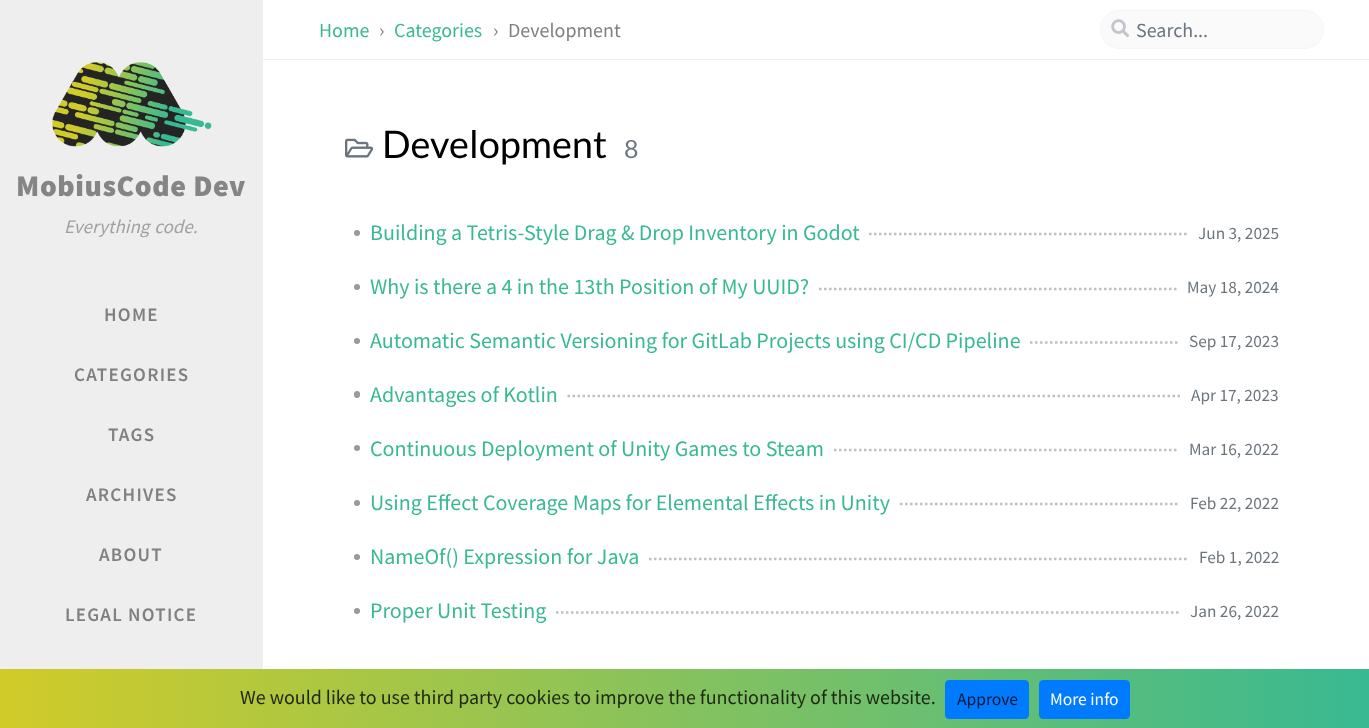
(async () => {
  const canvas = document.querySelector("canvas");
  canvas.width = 1369;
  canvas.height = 728;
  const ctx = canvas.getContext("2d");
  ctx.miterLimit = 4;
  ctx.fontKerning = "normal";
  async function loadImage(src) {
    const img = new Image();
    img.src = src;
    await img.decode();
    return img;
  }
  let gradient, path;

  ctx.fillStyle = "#ffffff";
  ctx.fillRect(0, 0, 1369, 728);
  ctx.fillStyle = "#ededed";
  ctx.fillRect(263, 59, 1106, 1);
  ctx.fillStyle = "#fafafa";
  ctx.beginPath();
  ctx.roundRect(1100.5, 10.5, 223, 38, 19);
  ctx.fill();
  ctx.strokeStyle = "#f5f5f5";
  ctx.stroke();
  ctx.drawImage(await loadImage("img/1.png"), 1111, 19, 19, 19);
  ctx.fillStyle = "#eeeeee";
  ctx.fillRect(0, 0, 263, 669);
  ctx.drawImage(await loadImage("img/2.png"), 52, 62, 160, 85);
  ctx.drawImage(await loadImage("img/3.png"), 345, 138, 29, 20);
  ctx.fillStyle = "#999999";
  ctx.beginPath();
  ctx.arc(357, 233, 3, 0, Math.PI * 2);
  ctx.fill();
  path = new Path2D("M869 234H1187.5");
  ctx.strokeStyle = "#c0c0c0";
  ctx.lineWidth = 2.5;
  ctx.setLineDash([2.5, 2.5]);
  ctx.stroke(path);
  ctx.beginPath();
  ctx.arc(357, 287, 3, 0, Math.PI * 2);
  ctx.fill();
  path = new Path2D("M819 289H1177.5");
  ctx.stroke(path);
  ctx.beginPath();
  ctx.arc(357, 341, 3, 0, Math.PI * 2);
  ctx.fill();
  path = new Path2D("M1030 342.5H1179");
  ctx.stroke(path);
  ctx.beginPath();
  ctx.roundRect(354, 391, 6, 7, 3);
  ctx.fill();
  path = new Path2D("M567.5 396H1181");
  ctx.stroke(path);
  ctx.beginPath();
  ctx.arc(357, 448, 3, 0, Math.PI * 2);
  ctx.fill();
  path = new Path2D("M834 450H1179");
  ctx.stroke(path);
  ctx.beginPath();
  ctx.arc(357, 503, 3, 0, Math.PI * 2);
  ctx.fill();
  path = new Path2D("M900 504H1180");
  ctx.stroke(path);
  ctx.beginPath();
  ctx.arc(357, 557, 3, 0, Math.PI * 2);
  ctx.fill();
  path = new Path2D("M649 559H1189");
  ctx.stroke(path);
  ctx.beginPath();
  ctx.arc(357, 611, 3, 0, Math.PI * 2);
  ctx.fill();
  path = new Path2D("M556 612.5H1180");
  ctx.stroke(path);
  gradient = ctx.createLinearGradient(0, 699, 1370, 699);
  gradient.addColorStop(0, "#d1cb29");
  gradient.addColorStop(1, "#39b992");
  ctx.fillStyle = gradient;
  ctx.fillRect(0, 669, 1369, 59);
  ctx.fillStyle = "#007bff";
  ctx.beginPath();
  ctx.roundRect(945.5, 680.5, 83, 38, 3.5);
  ctx.fill();
  ctx.strokeStyle = "#007bff";
  ctx.lineWidth = 1;
  ctx.setLineDash([]);
  ctx.stroke();
  ctx.beginPath();
  ctx.roundRect(1039.5, 680.5, 90, 38, 3.5);
  ctx.fill();
  ctx.stroke();
  ctx.font = "20px Source Sans Pro";
  ctx.fillStyle = "#39b992";
  ctx.fillText("Home", 319, 37);
  ctx.fillStyle = "#808080";
  ctx.fillText("›", 379, 37);
  ctx.fillStyle = "#39b992";
  ctx.fillText("Categories", 394, 37);
  ctx.fillStyle = "#808080";
  ctx.fillText("›", 493, 37);
  ctx.fillText("Development", 508, 37);
  ctx.fillStyle = "#6c757d";
  ctx.fillText("Search...", 1136, 37);
  ctx.letterSpacing = "0.6px";
  ctx.font = "900 30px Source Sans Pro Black";
  ctx.fillStyle = "#868585";
  ctx.fillText("MobiusCode Dev", 16, 196);
  ctx.letterSpacing = "0px";
  ctx.wordSpacing = "1px";
  ctx.font = "italic 19px Source Sans Pro";
  ctx.fillStyle = "#a2a19f";
  ctx.fillText("Everything code.", 64, 233);
  ctx.letterSpacing = "1.25px";
  ctx.wordSpacing = "0px";
  ctx.font = "600 19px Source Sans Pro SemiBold";
  ctx.fillStyle = "#808080";
  for (const [text, x, y] of [
    ["HOME", 104, 321],
    ["CATEGORIES", 74, 381],
    ["TAGS", 108, 441],
    ["ARCHIVES", 86, 501],
    ["ABOUT", 99, 561],
    ["LEGAL NOTICE", 65, 621],
  ]) {
    ctx.fillText(text, x, y);
  }
  ctx.letterSpacing = "0px";
  ctx.font = "38px Lato";
  ctx.fillStyle = "#000000";
  ctx.fillText("Development", 382, 158);
  ctx.font = "25px Lato";
  ctx.fillStyle = "#6c757d";
  ctx.fillText("8", 624, 158);
  ctx.font = "22px Source Sans Pro";
  ctx.fillStyle = "#39b992";
  ctx.fillText("Building a Tetris-Style Drag & Drop Inventory in Godot", 370, 240);
  ctx.font = "17.25px Source Sans Pro";
  ctx.fillStyle = "#6c757d";
  ctx.fillText("Jun 3, 2025", 1198, 239);
  ctx.font = "22px Source Sans Pro";
  ctx.fillStyle = "#39b992";
  ctx.fillText("Why is there a 4 in the 13th Position of My UUID?", 370, 294);
  ctx.font = "17.25px Source Sans Pro";
  ctx.fillStyle = "#6c757d";
  ctx.fillText("May 18, 2024", 1187, 293);
  ctx.font = "22px Source Sans Pro";
  ctx.fillStyle = "#39b992";
  ctx.fillText("Automatic Semantic Versioning for GitLab Projects using CI/CD Pipeline", 370, 348);
  ctx.font = "17.25px Source Sans Pro";
  ctx.fillStyle = "#6c757d";
  ctx.fillText("Sep 17, 2023", 1189, 347);
  ctx.font = "22px Source Sans Pro";
  ctx.fillStyle = "#39b992";
  ctx.fillText("Advantages of Kotlin", 370, 402);
  ctx.font = "17.25px Source Sans Pro";
  ctx.fillStyle = "#6c757d";
  ctx.fillText("Apr 17, 2023", 1191, 401);
  ctx.font = "22px Source Sans Pro";
  ctx.fillStyle = "#39b992";
  ctx.fillText("Continuous Deployment of Unity Games to Steam", 370, 456);
  ctx.font = "17.25px Source Sans Pro";
  ctx.fillStyle = "#6c757d";
  ctx.fillText("Mar 16, 2022", 1189, 455);
  ctx.font = "22px Source Sans Pro";
  ctx.fillStyle = "#39b992";
  ctx.fillText("Using Effect Coverage Maps for Elemental Effects in Unity", 370, 510);
  ctx.font = "17.25px Source Sans Pro";
  ctx.fillStyle = "#6c757d";
  ctx.fillText("Feb 22, 2022", 1190, 509);
  ctx.font = "22px Source Sans Pro";
  ctx.fillStyle = "#39b992";
  ctx.fillText("NameOf() Expression for Java", 370, 564);
  ctx.font = "17.25px Source Sans Pro";
  ctx.fillStyle = "#6c757d";
  ctx.fillText("Feb 1, 2022", 1199, 563);
  ctx.font = "22px Source Sans Pro";
  ctx.fillStyle = "#39b992";
  ctx.fillText("Proper Unit Testing", 370, 618);
  ctx.font = "17.25px Source Sans Pro";
  ctx.fillStyle = "#6c757d";
  ctx.fillText("Jan 26, 2022", 1190, 617);
  ctx.font = "20px Source Sans Pro";
  ctx.fillStyle = "#1d2711";
  ctx.fillText("We would like to use third party cookies to improve the functionality of this website.", 240, 704);
  ctx.font = "17.5px Source Sans Pro";
  ctx.fillStyle = "#001933";
  ctx.fillText("Approve", 957, 705);
  ctx.fillStyle = "#ffffff";
  ctx.fillText("More info", 1050, 705);
})();
